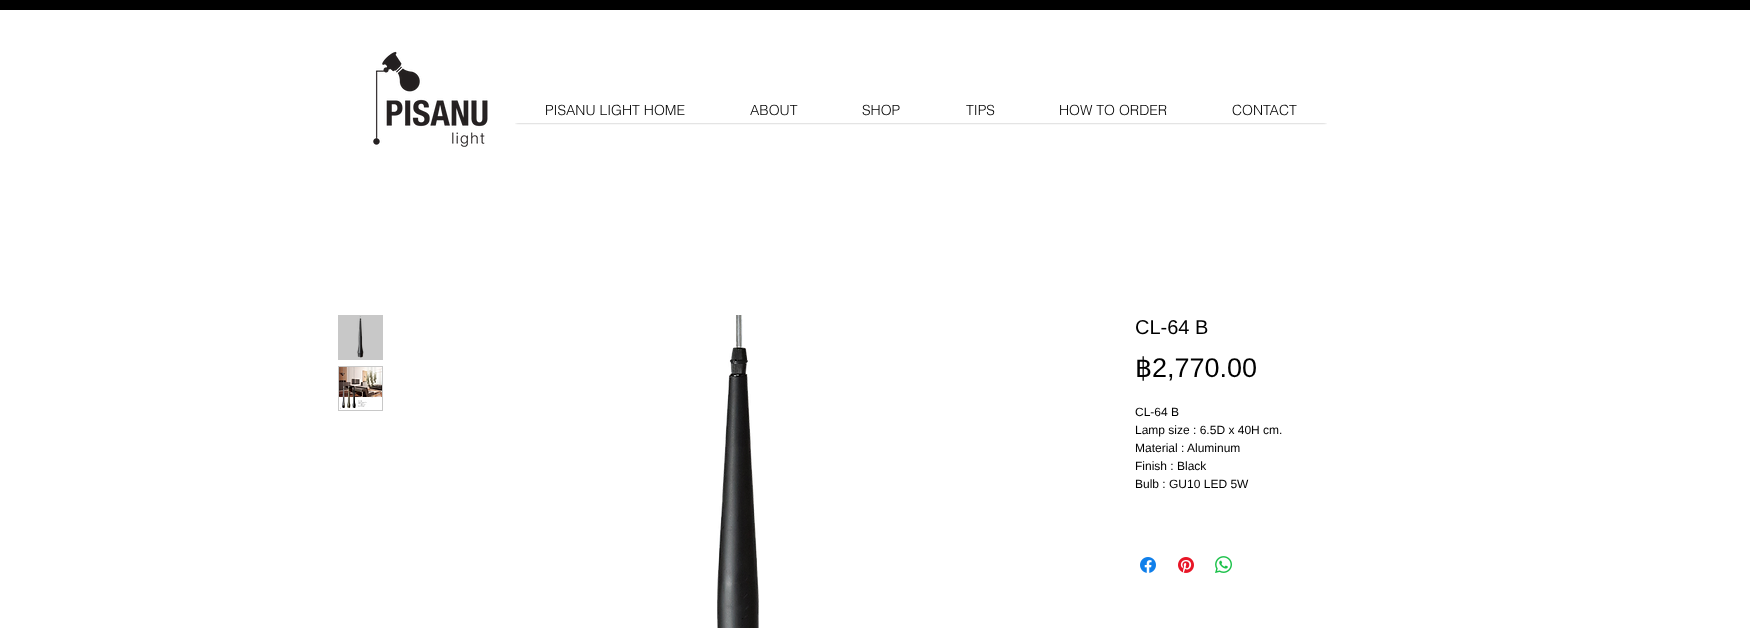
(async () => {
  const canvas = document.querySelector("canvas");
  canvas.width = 1750;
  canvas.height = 628;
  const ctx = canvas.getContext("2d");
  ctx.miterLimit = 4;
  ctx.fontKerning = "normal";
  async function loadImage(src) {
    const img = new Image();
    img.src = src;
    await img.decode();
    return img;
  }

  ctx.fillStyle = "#ffffff";
  ctx.fillRect(0, 0, 1750, 628);
  ctx.fillStyle = "#000000";
  ctx.fillRect(0, 0, 1750, 10);
  ctx.drawImage(await loadImage("img/1.png"), 373, 51, 115, 96);
  ctx.save();
  ctx.beginPath();
  ctx.rect(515, 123, 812, 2);
  ctx.clip();
  ctx.fillStyle = "rgba(0, 0, 0, 0.7)";
  ctx.filter = "blur(1.5px)";
  ctx.beginPath();
  ctx.rect(516, 102, 810, 20);
  ctx.fill();
  ctx.filter = "none";
  ctx.restore();
  ctx.fillStyle = "#c8c8c8";
  ctx.fillRect(338, 315, 45, 45);
  ctx.drawImage(await loadImage("img/2.png"), 357, 316, 7, 42);
  ctx.fillRect(338, 366, 45, 45);
  ctx.drawImage(await loadImage("img/3.png"), 339, 367, 43, 43);
  ctx.drawImage(await loadImage("img/4.png"), 717, 315, 42, 313);
  ctx.drawImage(await loadImage("img/5.png"), 1140, 557, 16, 16);
  ctx.drawImage(await loadImage("img/6.png"), 1178, 557, 16, 16);
  ctx.drawImage(await loadImage("img/7.png"), 1215, 556, 17, 17);
  ctx.font = "300 14px helvetica";
  ctx.fillStyle = "#000000";
  for (const [text, x, y] of [
    ["PISANU LIGHT HOME", 545, 115],
    ["ABOUT", 750, 115],
    ["SHOP", 862, 115],
    ["TIPS", 966, 115],
    ["HOW TO ORDER", 1059, 115],
    ["CONTACT", 1232, 115],
  ]) {
    ctx.fillText(text, x, y);
  }
  ctx.font = "20px Liberation Sans";
  ctx.fillText("CL-64 B", 1135, 334);
  ctx.font = "27px DejaVu Sans";
  ctx.fillText("฿", 1135, 377);
  ctx.font = "27px Liberation Sans";
  ctx.fillText("2,770.00", 1152, 377);
  ctx.font = "12px Liberation Sans";
  for (const [text, x, y] of [
    ["CL-64 B", 1135, 416],
    ["Lamp size : 6.5D x 40H cm.", 1135, 434],
    ["Material : Aluminum", 1135, 452],
    ["Finish : Black", 1135, 470],
    ["Bulb : GU10 LED 5W", 1135, 488],
  ]) {
    ctx.fillText(text, x, y);
  }
})();
